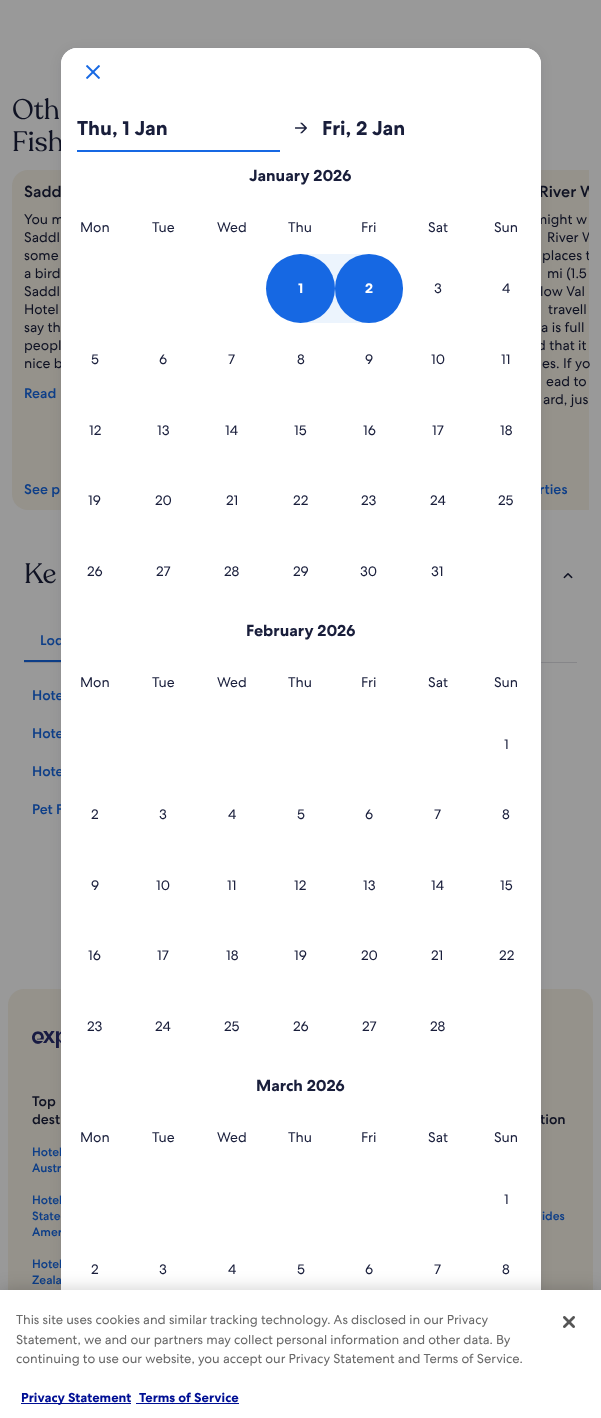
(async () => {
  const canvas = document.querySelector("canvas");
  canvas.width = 601;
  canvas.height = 1418;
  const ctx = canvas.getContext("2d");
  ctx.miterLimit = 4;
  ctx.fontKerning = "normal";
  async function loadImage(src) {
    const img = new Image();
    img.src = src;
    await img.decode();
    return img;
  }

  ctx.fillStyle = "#999999";
  ctx.fillRect(0, 0, 601, 1418);
  ctx.fillStyle = "#95928b";
  ctx.beginPath();
  ctx.roundRect(12, 170, 208, 340, 16);
  ctx.fill();
  ctx.fillRect(541, 170, 48, 340);
  ctx.drawImage(await loadImage("img/1.png"), 563, 573, 10, 6);
  ctx.fillStyle = "#868689";
  ctx.fillRect(24, 662, 553, 1);
  ctx.fillStyle = "#0d3e88";
  ctx.fillRect(24, 660, 37, 2);
  ctx.fillStyle = "#95928b";
  ctx.beginPath();
  ctx.roundRect(8, 989, 585, 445, 16);
  ctx.fill();
  ctx.drawImage(await loadImage("img/2.png"), 32, 1031, 29, 17);
  ctx.fillStyle = "rgba(12, 14, 28, 0.08)";
  ctx.filter = "blur(6px)";
  ctx.beginPath();
  ctx.roundRect(61, 50, 480, 1322, 16);
  ctx.fill();
  ctx.filter = "none";
  ctx.font = "28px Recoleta";
  ctx.fillStyle = "#0f1223";
  ctx.fillText("Oth", 12, 119);
  ctx.fillText("Fish", 12, 151);
  ctx.font = "500 16px 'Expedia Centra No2'";
  ctx.fillText("Sadd", 24, 197);
  ctx.font = "14px 'Expedia Centra No2'";
  for (const [text, x, y] of [
    ["You m", 24, 224],
    ["Saddl", 24, 242],
    ["some", 24, 260],
    ["a bird", 24, 278],
    ["Saddl", 24, 296],
    ["Hotel", 24, 314],
    ["say th", 24, 332],
    ["peopl", 24, 350],
    ["nice b", 24, 368],
  ]) {
    ctx.fillText(text, x, y);
  }
  ctx.font = "500 14px 'Expedia Centra No2'";
  ctx.fillStyle = "#0d3e88";
  ctx.fillText("Read", 24, 398);
  ctx.fillText("See p", 24, 494);
  ctx.save();
  ctx.beginPath();
  ctx.rect(12, 170, 577, 340);
  ctx.clip();
  ctx.font = "500 16px 'Expedia Centra No2'";
  ctx.fillStyle = "#0f1223";
  ctx.fillText("River W", 539, 197);
  ctx.restore();
  ctx.font = "14px 'Expedia Centra No2'";
  ctx.fillStyle = "#0f1223";
  ctx.fillText("might w", 535, 224);
  ctx.save();
  ctx.beginPath();
  ctx.rect(12, 170, 577, 340);
  ctx.clip();
  ctx.fillText("River W", 547, 242);
  ctx.fillText("places t", 542, 260);
  ctx.restore();
  for (const [text, x, y] of [
    ["mi (1.5", 547, 278],
    ["low Val", 540, 296],
    ["travell", 548, 314],
    ["a is full", 541, 332],
    ["d that it", 537, 350],
    ["es. If yo", 542, 368],
    ["ead to", 546, 386],
    ["ard, jus", 543, 404],
  ]) {
    ctx.fillText(text, x, y);
  }
  ctx.font = "500 14px 'Expedia Centra No2'";
  ctx.fillStyle = "#0d3e88";
  ctx.fillText("rties", 539, 494);
  ctx.font = "28px Recoleta";
  ctx.fillStyle = "#0f1223";
  ctx.fillText("Ke", 24, 583);
  ctx.font = "500 14px 'Expedia Centra No2'";
  ctx.fillStyle = "#0d3e88";
  for (const [text, x, y] of [
    ["Lod", 40, 645],
    ["Hote", 32, 700],
    ["Hote", 32, 738],
    ["Hote", 32, 776],
    ["Pet F", 32, 814],
  ]) {
    ctx.fillText(text, x, y);
  }
  ctx.fillStyle = "#0f1223";
  ctx.fillText("Top", 32, 1106);
  ctx.fillText("dest", 32, 1124);
  ctx.font = "500 12px 'Expedia Centra No2'";
  ctx.fillStyle = "#0d3e88";
  for (const [text, x, y] of [
    ["Hotel", 32, 1156],
    ["Austr", 32, 1172],
    ["Hotel", 32, 1204],
    ["State", 32, 1220],
    ["Amer", 32, 1236],
    ["Hotel", 32, 1268],
    ["Zeala", 32, 1284],
  ]) {
    ctx.fillText(text, x, y);
  }
  ctx.font = "500 14px 'Expedia Centra No2'";
  ctx.fillStyle = "#0f1223";
  ctx.fillText("tion", 540, 1124);
  ctx.font = "500 12px 'Expedia Centra No2'";
  ctx.fillStyle = "#0d3e88";
  ctx.fillText("ides", 542, 1220);
  ctx.fillStyle = "#ffffff";
  ctx.beginPath();
  ctx.roundRect(61, 48, 480, 1322, 16);
  ctx.fill();
  ctx.beginPath();
  ctx.roundRect(61, 48, 480, 104, [16, 16, 0, 0]);
  ctx.fill();
  ctx.drawImage(await loadImage("img/3.png"), 86, 65, 14, 14);
  ctx.fillStyle = "#1668e3";
  ctx.fillRect(77, 150, 203, 2);
  ctx.save();
  ctx.beginPath();
  ctx.rect(77, 104, 203, 48);
  ctx.clip();
  ctx.font = "bold 20px 'Expedia Centra No2'";
  ctx.fillStyle = "#191e3b";
  ctx.fillText("Thu, 1 Jan", 77, 135);
  ctx.restore();
  ctx.drawImage(await loadImage("img/4.png"), 295, 122, 12, 12);
  ctx.font = "bold 20px 'Expedia Centra No2'";
  ctx.fillStyle = "#191e3b";
  ctx.fillText("Fri, 2 Jan", 322, 135);
  ctx.font = "bold 16px 'Expedia Centra No2'";
  ctx.fillText("January 2026", 249, 181);
  ctx.font = "14px 'Expedia Centra No2'";
  for (const [text, x, y] of [
    ["Mon", 80, 232],
    ["Tue", 152, 232],
    ["Wed", 217, 232],
    ["Thu", 288, 232],
    ["Fri", 361, 232],
    ["Sat", 428, 232],
    ["Sun", 494, 232],
  ]) {
    ctx.fillText(text, x, y);
  }
  ctx.fillStyle = "#ecf4fd";
  ctx.fillRect(301, 254, 68, 69);
  ctx.fillStyle = "#1668e3";
  ctx.beginPath();
  ctx.arc(300.5, 288.5, 34.5, 0, Math.PI * 2);
  ctx.fill();
  ctx.font = "bold 14px 'Expedia Centra No2'";
  ctx.fillStyle = "#ffffff";
  ctx.fillText("1", 298, 293);
  ctx.fillStyle = "#1668e3";
  ctx.beginPath();
  ctx.roundRect(335, 254, 68, 69, 34);
  ctx.fill();
  ctx.fillStyle = "#ffffff";
  ctx.fillText("2", 365, 293);
  ctx.font = "14px 'Expedia Centra No2'";
  ctx.fillStyle = "#191e3b";
  for (const [text, x, y] of [
    ["3", 434, 293],
    ["4", 502, 293],
    ["5", 91, 364],
    ["6", 159, 364],
    ["7", 228, 364],
    ["8", 297, 364],
    ["9", 365, 364],
    ["10", 431, 364],
    ["11", 501, 364],
    ["12", 89, 435],
    ["13", 157, 435],
    ["14", 225, 435],
    ["15", 294, 435],
    ["16", 363, 435],
    ["17", 432, 435],
    ["18", 500, 435],
    ["19", 88, 505],
    ["20", 155, 505],
    ["21", 226, 505],
    ["22", 293, 505],
    ["23", 361, 505],
    ["24", 430, 505],
    ["25", 498, 505],
    ["26", 87, 576],
    ["27", 156, 576],
    ["28", 224, 576],
    ["29", 293, 576],
    ["30", 360, 576],
    ["31", 431, 576],
  ]) {
    ctx.fillText(text, x, y);
  }
  ctx.font = "bold 16px 'Expedia Centra No2'";
  ctx.fillText("February 2026", 246, 636);
  ctx.font = "14px 'Expedia Centra No2'";
  for (const [text, x, y] of [
    ["Mon", 80, 687],
    ["Tue", 152, 687],
    ["Wed", 217, 687],
    ["Thu", 288, 687],
    ["Fri", 361, 687],
    ["Sat", 428, 687],
    ["Sun", 494, 687],
    ["1", 504, 749],
    ["2", 91, 819],
    ["3", 159, 819],
    ["4", 228, 819],
    ["5", 297, 819],
    ["6", 365, 819],
    ["7", 434, 819],
    ["8", 502, 819],
    ["9", 91, 890],
    ["10", 156, 890],
    ["11", 227, 890],
    ["12", 294, 890],
    ["13", 363, 890],
    ["14", 431, 890],
    ["15", 500, 890],
    ["16", 88, 960],
    ["17", 157, 960],
    ["18", 226, 960],
    ["19", 294, 960],
    ["20", 361, 960],
    ["21", 431, 960],
    ["22", 499, 960],
    ["23", 87, 1031],
    ["24", 155, 1031],
    ["25", 224, 1031],
    ["26", 293, 1031],
    ["27", 362, 1031],
    ["28", 430, 1031],
  ]) {
    ctx.fillText(text, x, y);
  }
  ctx.font = "bold 16px 'Expedia Centra No2'";
  ctx.fillText("March 2026", 256, 1091);
  ctx.font = "14px 'Expedia Centra No2'";
  for (const [text, x, y] of [
    ["Mon", 80, 1142],
    ["Tue", 152, 1142],
    ["Wed", 217, 1142],
    ["Thu", 288, 1142],
    ["Fri", 361, 1142],
    ["Sat", 428, 1142],
    ["Sun", 494, 1142],
    ["1", 504, 1204],
    ["2", 91, 1274],
    ["3", 159, 1274],
    ["4", 228, 1274],
    ["5", 297, 1274],
    ["6", 365, 1274],
    ["7", 434, 1274],
    ["8", 502, 1274],
  ]) {
    ctx.fillText(text, x, y);
  }
  ctx.fillStyle = "rgba(0, 0, 0, 0.2)";
  ctx.filter = "blur(9px)";
  ctx.beginPath();
  ctx.rect(0, 1290, 601, 128);
  ctx.fill();
  ctx.filter = "none";
  ctx.fillStyle = "#ffffff";
  ctx.fillRect(0, 1290, 601, 128);
  ctx.font = "13px 'Expedia Centra No2'";
  ctx.fillStyle = "#696969";
  for (const [text, x, y] of [
    ["This site uses cookies and similar tracking technology. As disclosed in our Privacy", 16, 1324],
    ["Statement, we and our partners may collect personal information and other data. By", 16, 1344],
    ["continuing to use our website, you accept our Privacy Statement and Terms of Service.", 16, 1363],
  ]) {
    ctx.fillText(text, x, y);
  }
  ctx.fillStyle = "#000f94";
  ctx.fillRect(21, 1403, 110, 1);
  ctx.font = "bold 13px 'Expedia Centra No2'";
  ctx.fillText("Privacy Statement", 21, 1402);
  ctx.fillText("Terms of Service", 139, 1402);
  ctx.fillRect(136, 1403, 103, 1);
  ctx.drawImage(await loadImage("img/5.png"), 563, 1316, 12, 12);
})();
